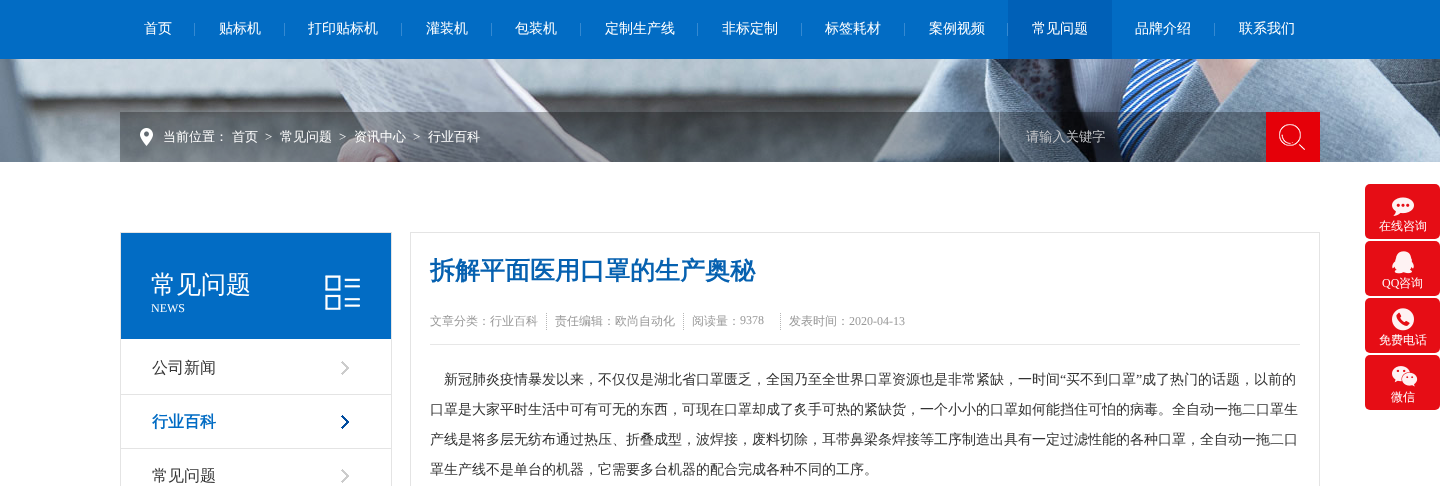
(async () => {
  const canvas = document.querySelector("canvas");
  canvas.width = 1440;
  canvas.height = 486;
  const ctx = canvas.getContext("2d");
  ctx.miterLimit = 4;
  ctx.fontKerning = "normal";
  async function loadImage(src) {
    const img = new Image();
    img.src = src;
    await img.decode();
    return img;
  }
  let path;

  ctx.fillStyle = "#ffffff";
  ctx.fillRect(0, 0, 1440, 486);
  for (const [x, y, w, h, color] of [
    [0, 0, 1440, 59, "#026cc4"],
    [194, 23, 1, 13, "#3589d1"],
    [284, 23, 1, 13, "#3589d1"],
    [401, 23, 1, 13, "#3589d1"],
    [491, 23, 1, 13, "#3589d1"],
    [580, 23, 1, 13, "#3589d1"],
    [697, 23, 1, 13, "#3589d1"],
    [801, 23, 1, 13, "#3589d1"],
    [904, 23, 1, 13, "#3589d1"],
    [1007, 23, 1, 13, "#3589d1"],
    [1008, 0, 104, 59, "#0060b7"],
    [1214, 23, 1, 13, "#3589d1"],
  ]) {
    ctx.fillStyle = color;
    ctx.fillRect(x, y, w, h);
  }
  ctx.drawImage(await loadImage("img/1.png"), 0, 59, 1440, 103);
  ctx.fillStyle = "rgba(0, 0, 0, 0.3)";
  ctx.fillRect(120, 112, 1146, 50);
  ctx.drawImage(await loadImage("img/2.png"), 140, 128, 13, 18);
  ctx.fillStyle = "rgba(255, 255, 255, 0.3)";
  ctx.fillRect(999, 112, 1, 50);
  ctx.fillStyle = "#e50009";
  ctx.fillRect(1266, 112, 54, 50);
  ctx.drawImage(await loadImage("img/3.png"), 1279, 124, 26, 26);
  ctx.strokeStyle = "#e4e4e4";
  ctx.strokeRect(120.5, 232.5, 271, 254);
  ctx.fillStyle = "#026cc4";
  ctx.fillRect(121, 233, 270, 106);
  ctx.drawImage(await loadImage("img/4.png"), 325, 275, 35, 35);
  ctx.drawImage(await loadImage("img/5.png"), 341, 361, 8, 14);
  ctx.fillStyle = "#e4e4e4";
  ctx.fillRect(121, 394, 270, 1);
  ctx.fillRect(121, 448, 270, 1);
  ctx.drawImage(await loadImage("img/6.png"), 341, 415, 8, 14);
  ctx.drawImage(await loadImage("img/5.png"), 341, 469, 8, 14);
  ctx.strokeRect(410.5, 232.5, 909, 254);
  path = new Path2D("M546.5 313V330");
  ctx.strokeStyle = "#b6b6b6";
  ctx.setLineDash([1, 1]);
  ctx.stroke(path);
  path = new Path2D("M683.5 313V330");
  ctx.stroke(path);
  path = new Path2D("M780.5 313V330");
  ctx.stroke(path);
  ctx.fillStyle = "#e7e7e7";
  ctx.fillRect(430, 344, 870, 1);
  ctx.fillStyle = "#e60d15";
  ctx.beginPath();
  ctx.roundRect(1365, 184, 75, 55, 5);
  ctx.fill();
  ctx.drawImage(await loadImage("img/7.png"), 1392, 197, 22, 19);
  ctx.beginPath();
  ctx.roundRect(1365, 241, 75, 55, 5);
  ctx.fill();
  ctx.drawImage(await loadImage("img/8.png"), 1392, 251, 22, 23);
  ctx.beginPath();
  ctx.roundRect(1365, 298, 75, 55, 5);
  ctx.fill();
  ctx.drawImage(await loadImage("img/9.png"), 1392, 308, 22, 23);
  ctx.beginPath();
  ctx.roundRect(1365, 355, 75, 55, 5);
  ctx.fill();
  ctx.drawImage(await loadImage("img/10.png"), 1392, 366, 26, 21);
  ctx.font = "500 14px WenQuanYi Zen Hei";
  ctx.fillStyle = "#ffffff";
  for (const [text, x, y] of [
    ["首页", 144, 33],
    ["贴标机", 219, 33],
    ["打印贴标机", 308, 33],
    ["灌装机", 426, 33],
    ["包装机", 515, 33],
    ["定制生产线", 605, 33],
    ["非标定制", 722, 33],
    ["标签耗材", 825, 33],
    ["案例视频", 929, 33],
    ["常见问题", 1032, 33],
    ["品牌介绍", 1135, 33],
    ["联系我们", 1239, 33],
  ]) {
    ctx.fillText(text, x, y);
  }
  ctx.font = "500 13px WenQuanYi Zen Hei";
  ctx.fillText("当前位置： 首页", 163, 141);
  ctx.font = "13px Liberation Serif";
  ctx.fillText(">", 265, 141);
  ctx.font = "500 13px WenQuanYi Zen Hei";
  ctx.fillText("常见问题", 280, 141);
  ctx.font = "13px Liberation Serif";
  ctx.fillText(">", 339, 141);
  ctx.font = "500 13px WenQuanYi Zen Hei";
  ctx.fillText("资讯中心", 354, 141);
  ctx.font = "13px Liberation Serif";
  ctx.fillText(">", 413, 141);
  ctx.font = "500 13px WenQuanYi Zen Hei";
  ctx.fillText("行业百科", 428, 141);
  ctx.font = "500 13.25px WenQuanYi Zen Hei";
  ctx.fillStyle = "#c0c2c6";
  ctx.fillText("请输入关键字", 1026, 141);
  ctx.font = "500 25px WenQuanYi Zen Hei";
  ctx.fillStyle = "#ffffff";
  ctx.fillText("常见问题", 151, 293);
  ctx.font = "12px Liberation Serif";
  ctx.fillText("NEWS", 151, 312);
  ctx.font = "500 16px WenQuanYi Zen Hei";
  ctx.fillStyle = "#333333";
  ctx.fillText("公司新闻", 152, 373);
  ctx.font = "bold 16px WenQuanYi Zen Hei";
  ctx.fillStyle = "#026cc4";
  ctx.fillText("行业百科", 152, 427);
  ctx.font = "500 16px WenQuanYi Zen Hei";
  ctx.fillStyle = "#333333";
  ctx.fillText("常见问题", 152, 481);
  ctx.font = "bold 25px WenQuanYi Zen Hei";
  ctx.fillStyle = "#0661b0";
  ctx.fillText("拆解平面医用口罩的生产奥秘", 430, 279);
  ctx.font = "500 12px WenQuanYi Zen Hei";
  ctx.fillStyle = "#999999";
  for (const [text, x, y] of [
    ["文章分类：行业百科", 430, 325],
    ["责任编辑：欧尚自动化", 555, 325],
    ["阅读量：", 692, 325],
  ]) {
    ctx.fillText(text, x, y);
  }
  ctx.font = "12px Liberation Serif";
  ctx.fillText("9378", 740, 324);
  ctx.font = "500 12px WenQuanYi Zen Hei";
  ctx.fillText("发表时间：", 789, 325);
  ctx.font = "12px Liberation Serif";
  ctx.fillText("2020-04-13", 849, 325);
  ctx.font = "500 14px WenQuanYi Zen Hei";
  ctx.fillStyle = "#333333";
  ctx.fillText("新冠肺炎疫情暴发以来，不仅仅是湖北省口罩匮乏，全国乃至全世界口罩资源也是非常紧缺，一时间", 444, 384);
  ctx.font = "14px Liberation Serif";
  ctx.fillText("“", 1060, 384);
  ctx.font = "500 14px WenQuanYi Zen Hei";
  ctx.fillText("买不到口罩", 1066, 384);
  ctx.font = "14px Liberation Serif";
  ctx.fillText("”", 1136, 384);
  ctx.font = "500 14px WenQuanYi Zen Hei";
  for (const [text, x, y] of [
    ["成了热门的话题，以前的", 1142, 384],
    ["口罩是大家平时生活中可有可无的东西，可现在口罩却成了炙手可热的紧缺货，一个小小的口罩如何能挡住可怕的病毒。全自动一拖二口罩生", 430, 414],
    ["产线是将多层无纺布通过热压、折叠成型，波焊接，废料切除，耳带鼻梁条焊接等工序制造出具有一定过滤性能的各种口罩，全自动一拖二口", 430, 444],
    ["罩生产线不是单台的机器，它需要多台机器的配合完成各种不同的工序。", 430, 474],
  ]) {
    ctx.fillText(text, x, y);
  }
  ctx.font = "500 12px WenQuanYi Zen Hei";
  ctx.fillStyle = "#ffffff";
  ctx.fillText("在线咨询", 1379, 230);
  ctx.font = "12px Liberation Serif";
  ctx.fillText("QQ", 1382, 287);
  ctx.font = "500 12px WenQuanYi Zen Hei";
  for (const [text, x, y] of [
    ["咨询", 1399, 287],
    ["免费电话", 1379, 344],
    ["微信", 1391, 401],
  ]) {
    ctx.fillText(text, x, y);
  }
})();
